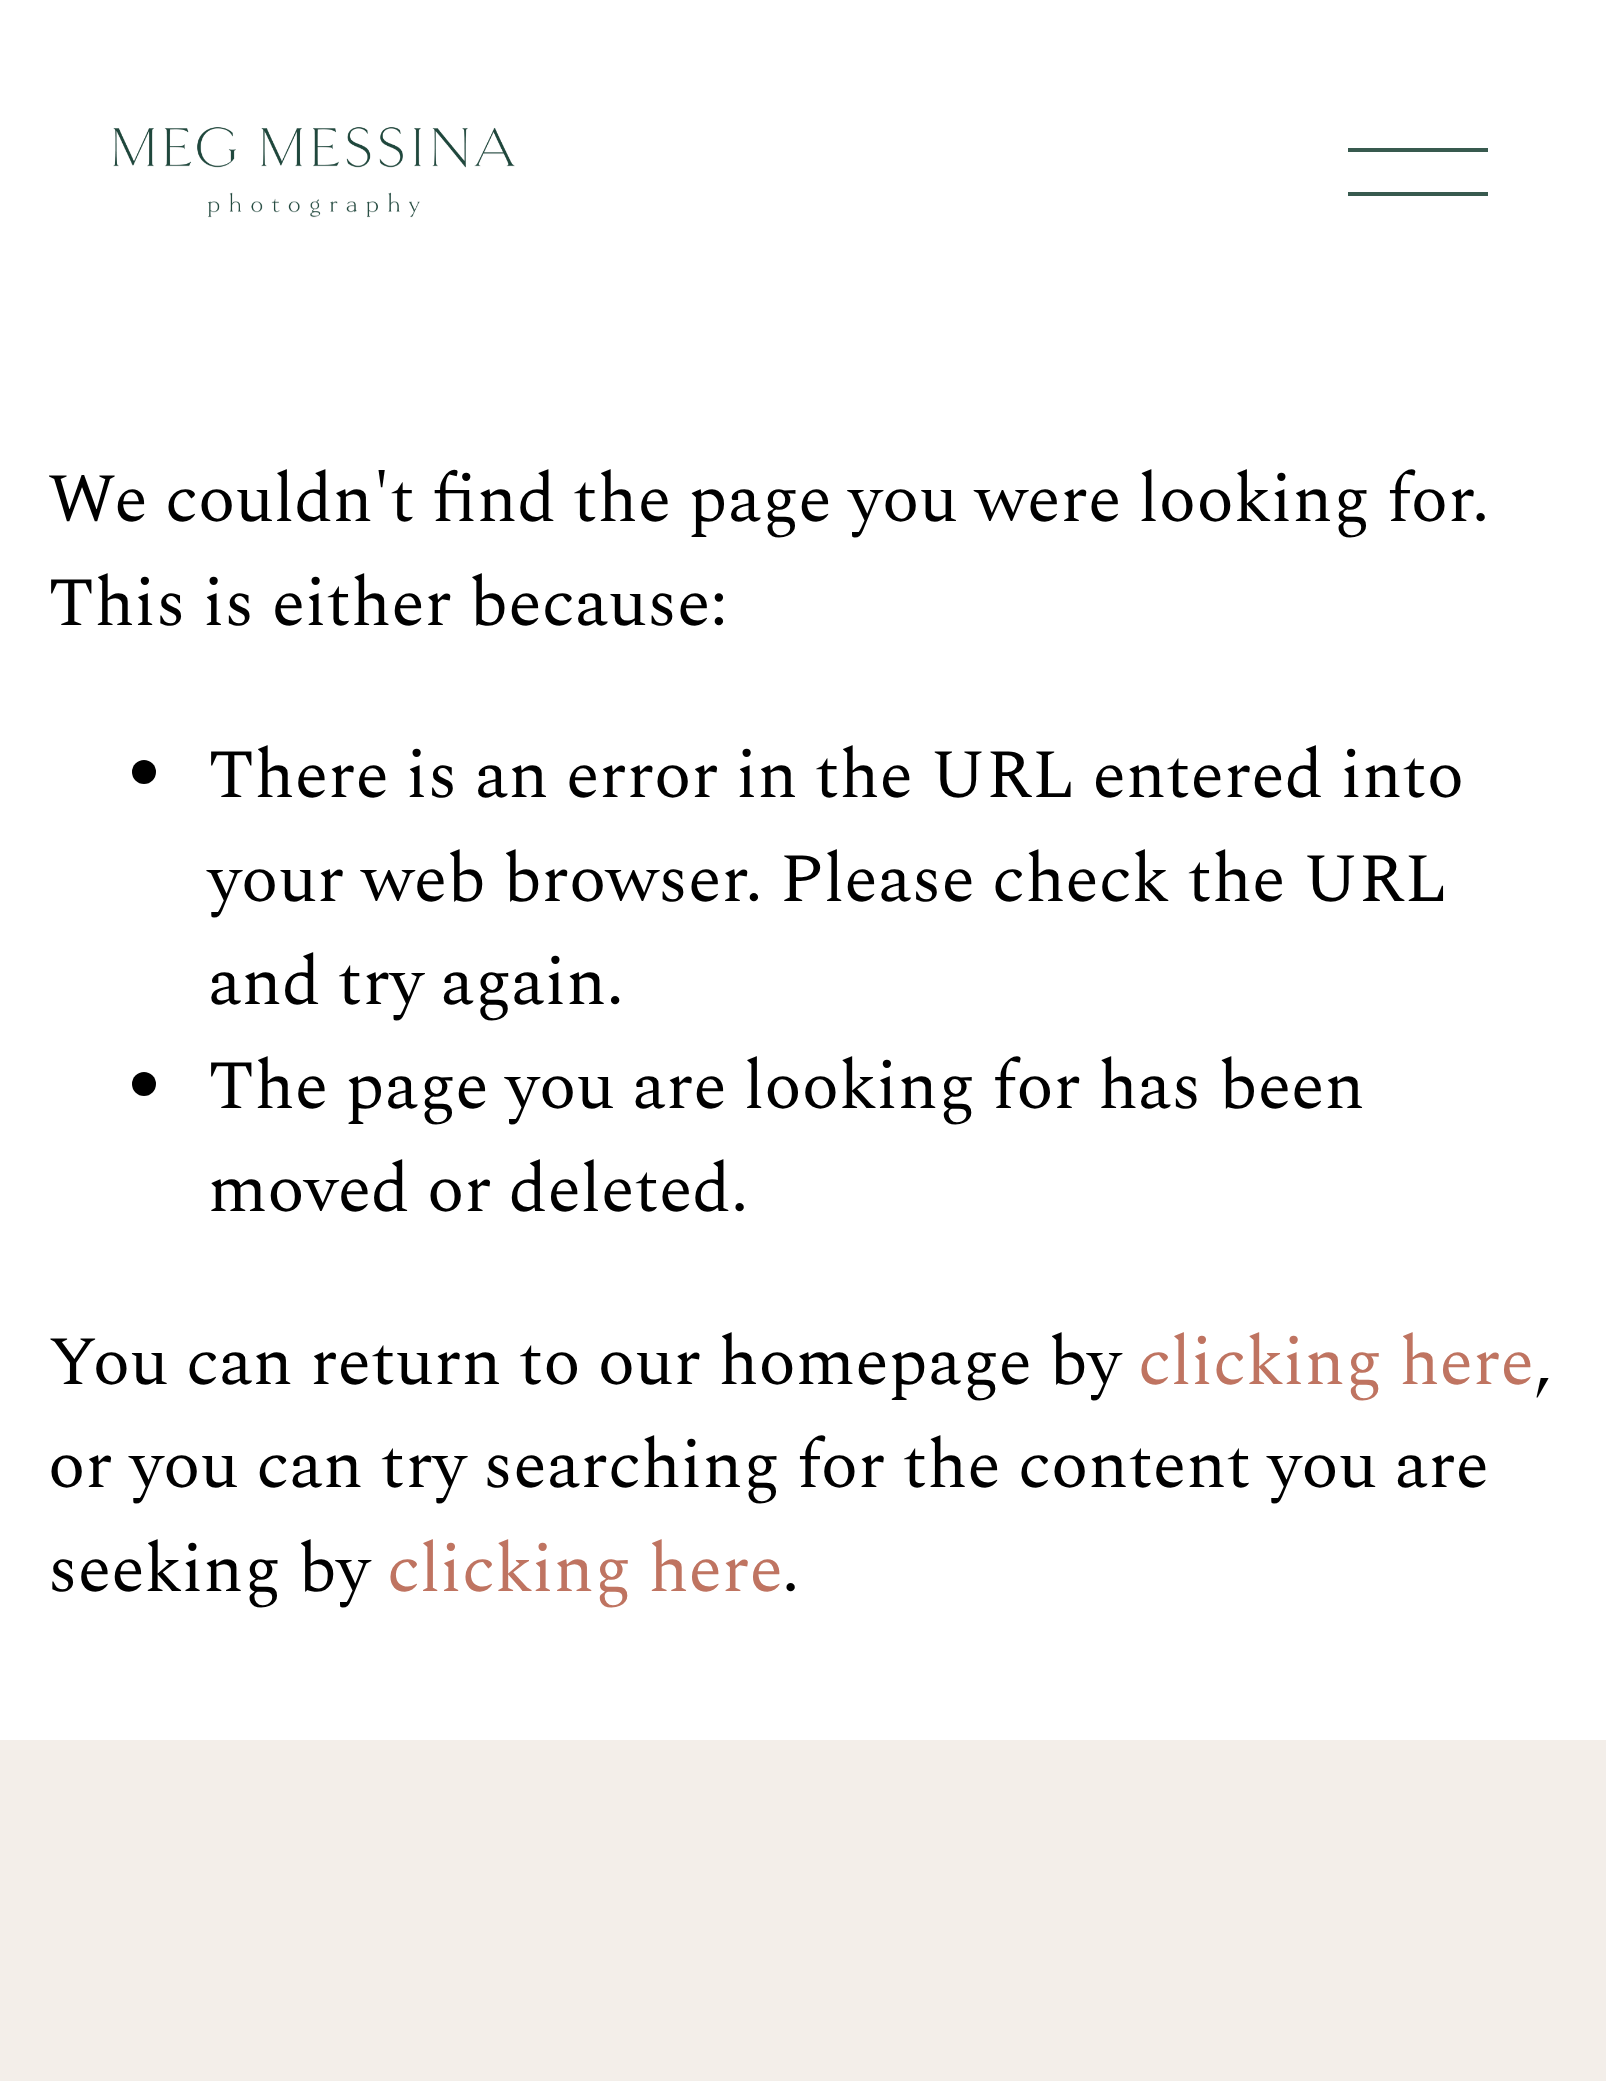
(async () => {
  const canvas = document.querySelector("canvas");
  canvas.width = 1606;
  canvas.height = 2081;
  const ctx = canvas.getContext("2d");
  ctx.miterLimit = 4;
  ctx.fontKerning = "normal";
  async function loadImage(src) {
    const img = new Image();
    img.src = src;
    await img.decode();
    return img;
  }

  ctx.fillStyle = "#ffffff";
  ctx.fillRect(0, 0, 1606, 2081);
  ctx.drawImage(await loadImage("img/1.png"), 113, 127, 402, 91);
  ctx.fillStyle = "#385a4f";
  ctx.fillRect(1348, 148, 140, 4);
  ctx.fillRect(1348, 192, 140, 4);
  ctx.fillStyle = "#000000";
  ctx.beginPath();
  ctx.arc(144, 772, 12, 0, Math.PI * 2);
  ctx.fill();
  ctx.beginPath();
  ctx.arc(144, 1084, 12, 0, Math.PI * 2);
  ctx.fill();
  ctx.fillStyle = "#f3eee9";
  ctx.fillRect(0, 1740, 1606, 341);
  ctx.font = "69px Spectral";
  ctx.fillStyle = "#000000";
  for (const [text, x, y] of [
    ["We couldn't find the page you were looking for.", 48, 521],
    ["This is either because:", 48, 625],
    ["There is an error in the URL entered into", 208, 797],
    ["your web browser. Please check the URL", 208, 901],
    ["and try again.", 208, 1004],
    ["The page you are looking for has been", 208, 1108],
    ["moved or deleted.", 208, 1211],
    ["You can return to our homepage by", 48, 1384],
  ]) {
    ctx.fillText(text, x, y);
  }
  ctx.fillStyle = "#bf7461";
  ctx.fillText("clicking here", 1138, 1384);
  ctx.fillStyle = "#000000";
  for (const [text, x, y] of [
    [",", 1534, 1384],
    ["or you can try searching for the content you are", 48, 1487],
    ["seeking by", 48, 1591],
  ]) {
    ctx.fillText(text, x, y);
  }
  ctx.fillStyle = "#bf7461";
  ctx.fillText("clicking here", 387, 1591);
  ctx.fillStyle = "#000000";
  ctx.fillText(".", 782, 1591);
})();
